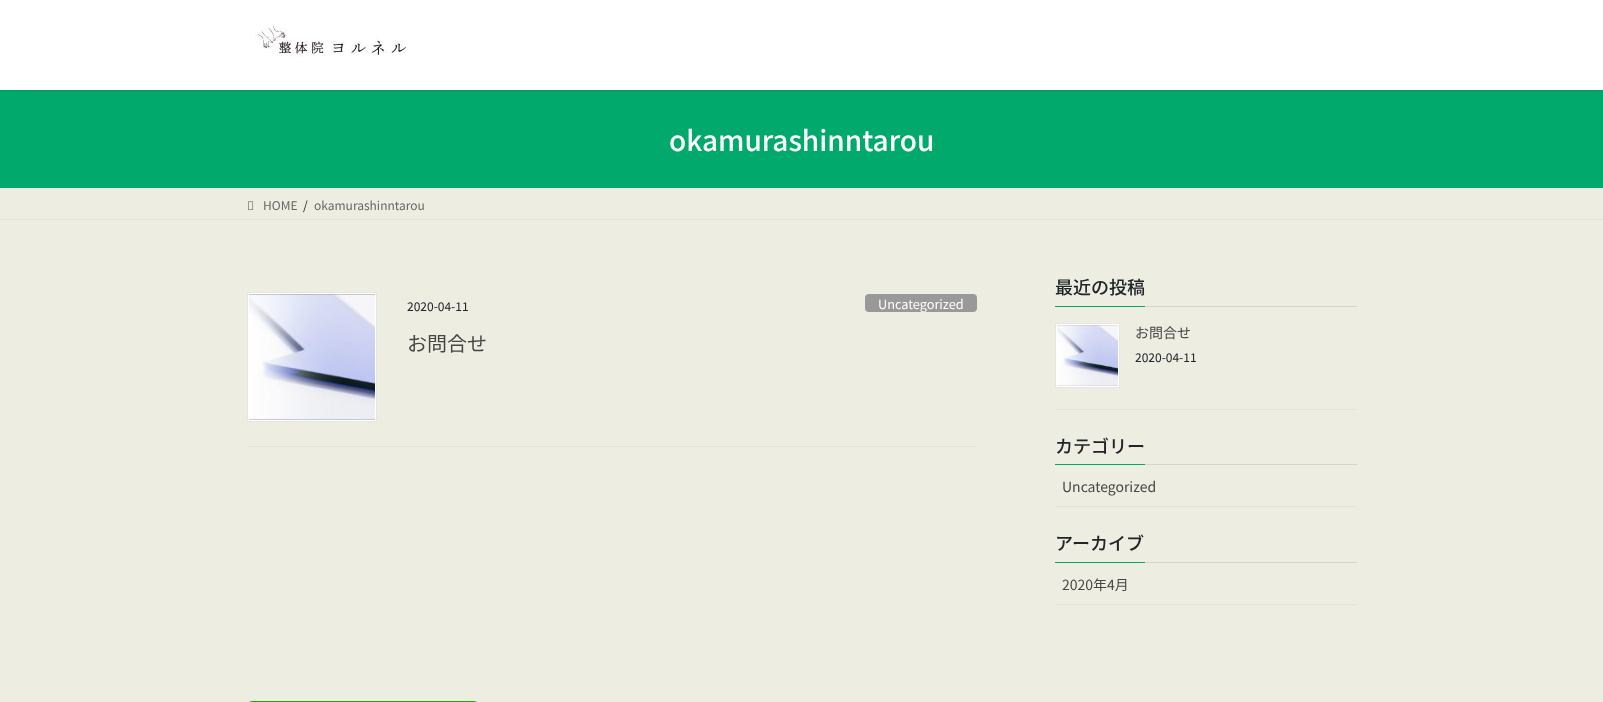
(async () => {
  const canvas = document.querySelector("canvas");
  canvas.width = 1603;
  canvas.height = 702;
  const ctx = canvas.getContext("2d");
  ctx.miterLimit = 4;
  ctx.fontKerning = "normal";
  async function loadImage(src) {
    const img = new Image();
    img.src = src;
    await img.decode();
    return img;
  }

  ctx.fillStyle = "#edede1";
  ctx.fillRect(0, 0, 1603, 702);
  ctx.fillStyle = "#01aa6c";
  ctx.fillRect(0, 90, 1603, 98);
  ctx.fillStyle = "rgba(0, 0, 0, 0.1)";
  ctx.filter = "blur(1.5px)";
  ctx.beginPath();
  ctx.rect(0, 1, 1603, 90);
  ctx.fill();
  ctx.filter = "none";
  ctx.fillStyle = "#ffffff";
  ctx.fillRect(0, 0, 1603, 90);
  ctx.drawImage(await loadImage("img/1.png"), 255, 25, 152, 32);
  ctx.fillStyle = "#e1e1d6";
  ctx.fillRect(0, 219, 1603, 1);
  ctx.drawImage(await loadImage("img/2.png"), 248, 201, 6, 9);
  ctx.fillRect(247, 446, 730, 1);
  ctx.strokeStyle = "#e5e5e5";
  ctx.strokeRect(247.5, 292.5, 129, 129);
  ctx.strokeStyle = "#ffffff";
  ctx.strokeRect(248.5, 293.5, 127, 127);
  ctx.drawImage(await loadImage("img/3.png"), 249, 294, 126, 126);
  ctx.fillStyle = "#999999";
  ctx.beginPath();
  ctx.roundRect(865, 294, 112, 18, 4);
  ctx.fill();
  for (const [x, y, w, h, color] of [
    [1145, 306, 212, 1, "#d5d5cb"],
    [1055, 306, 90, 1, "#01aa6c"],
    [1055, 409, 302, 1, "#e1e1d6"],
  ]) {
    ctx.fillStyle = color;
    ctx.fillRect(x, y, w, h);
  }
  ctx.strokeStyle = "#e5e5e5";
  ctx.strokeRect(1055.5, 323.5, 64, 64);
  ctx.strokeStyle = "#ffffff";
  ctx.strokeRect(1056.5, 324.5, 62, 62);
  ctx.drawImage(await loadImage("img/4.png"), 1057, 325, 61, 61);
  for (const [x, y, w, h, color] of [
    [1145, 464, 212, 1, "#d5d5cb"],
    [1055, 464, 90, 1, "#01aa6c"],
    [1055, 506, 302, 1, "#e1e1d6"],
    [1145, 562, 212, 1, "#d5d5cb"],
    [1055, 562, 90, 1, "#01aa6c"],
    [1055, 604, 302, 1, "#e1e1d6"],
  ]) {
    ctx.fillStyle = color;
    ctx.fillRect(x, y, w, h);
  }
  ctx.drawImage(await loadImage("img/5.png"), 249, 701, 228, 1);
  ctx.font = "500 28px Noto Sans JP";
  ctx.fillStyle = "#ffffff";
  ctx.fillText("okamurashinntarou", 669, 151);
  ctx.font = "12px Noto Sans JP";
  ctx.fillStyle = "#666666";
  ctx.fillText("HOME", 263, 210);
  ctx.fillStyle = "#212529";
  ctx.fillText("/", 303, 210);
  ctx.fillStyle = "#666666";
  ctx.fillText("okamurashinntarou", 314, 210);
  ctx.fillStyle = "#212529";
  ctx.fillText("2020-04-11", 407, 311);
  ctx.font = "12.75px Noto Sans JP";
  ctx.fillStyle = "#ffffff";
  ctx.fillText("Uncategorized", 878, 309);
  ctx.font = "20px Noto Sans JP";
  ctx.fillStyle = "#464646";
  ctx.fillText("お問合せ", 407, 351);
  ctx.font = "500 18px Noto Sans JP";
  ctx.fillStyle = "#212529";
  ctx.fillText("最近の投稿", 1055, 294);
  ctx.font = "14px Noto Sans JP";
  ctx.fillStyle = "#464646";
  ctx.fillText("お問合せ", 1135, 338);
  ctx.font = "12px Noto Sans JP";
  ctx.fillStyle = "#212529";
  ctx.fillText("2020-04-11", 1135, 362);
  ctx.font = "500 18px Noto Sans JP";
  ctx.fillText("カテゴリー", 1055, 453);
  ctx.font = "14px Noto Sans JP";
  ctx.fillStyle = "#464646";
  ctx.fillText("Uncategorized", 1062, 492);
  ctx.font = "500 18px Noto Sans JP";
  ctx.fillStyle = "#212529";
  ctx.fillText("アーカイブ", 1055, 550);
  ctx.font = "14px Noto Sans JP";
  ctx.fillStyle = "#464646";
  ctx.fillText("2020年4月", 1062, 590);
})();
